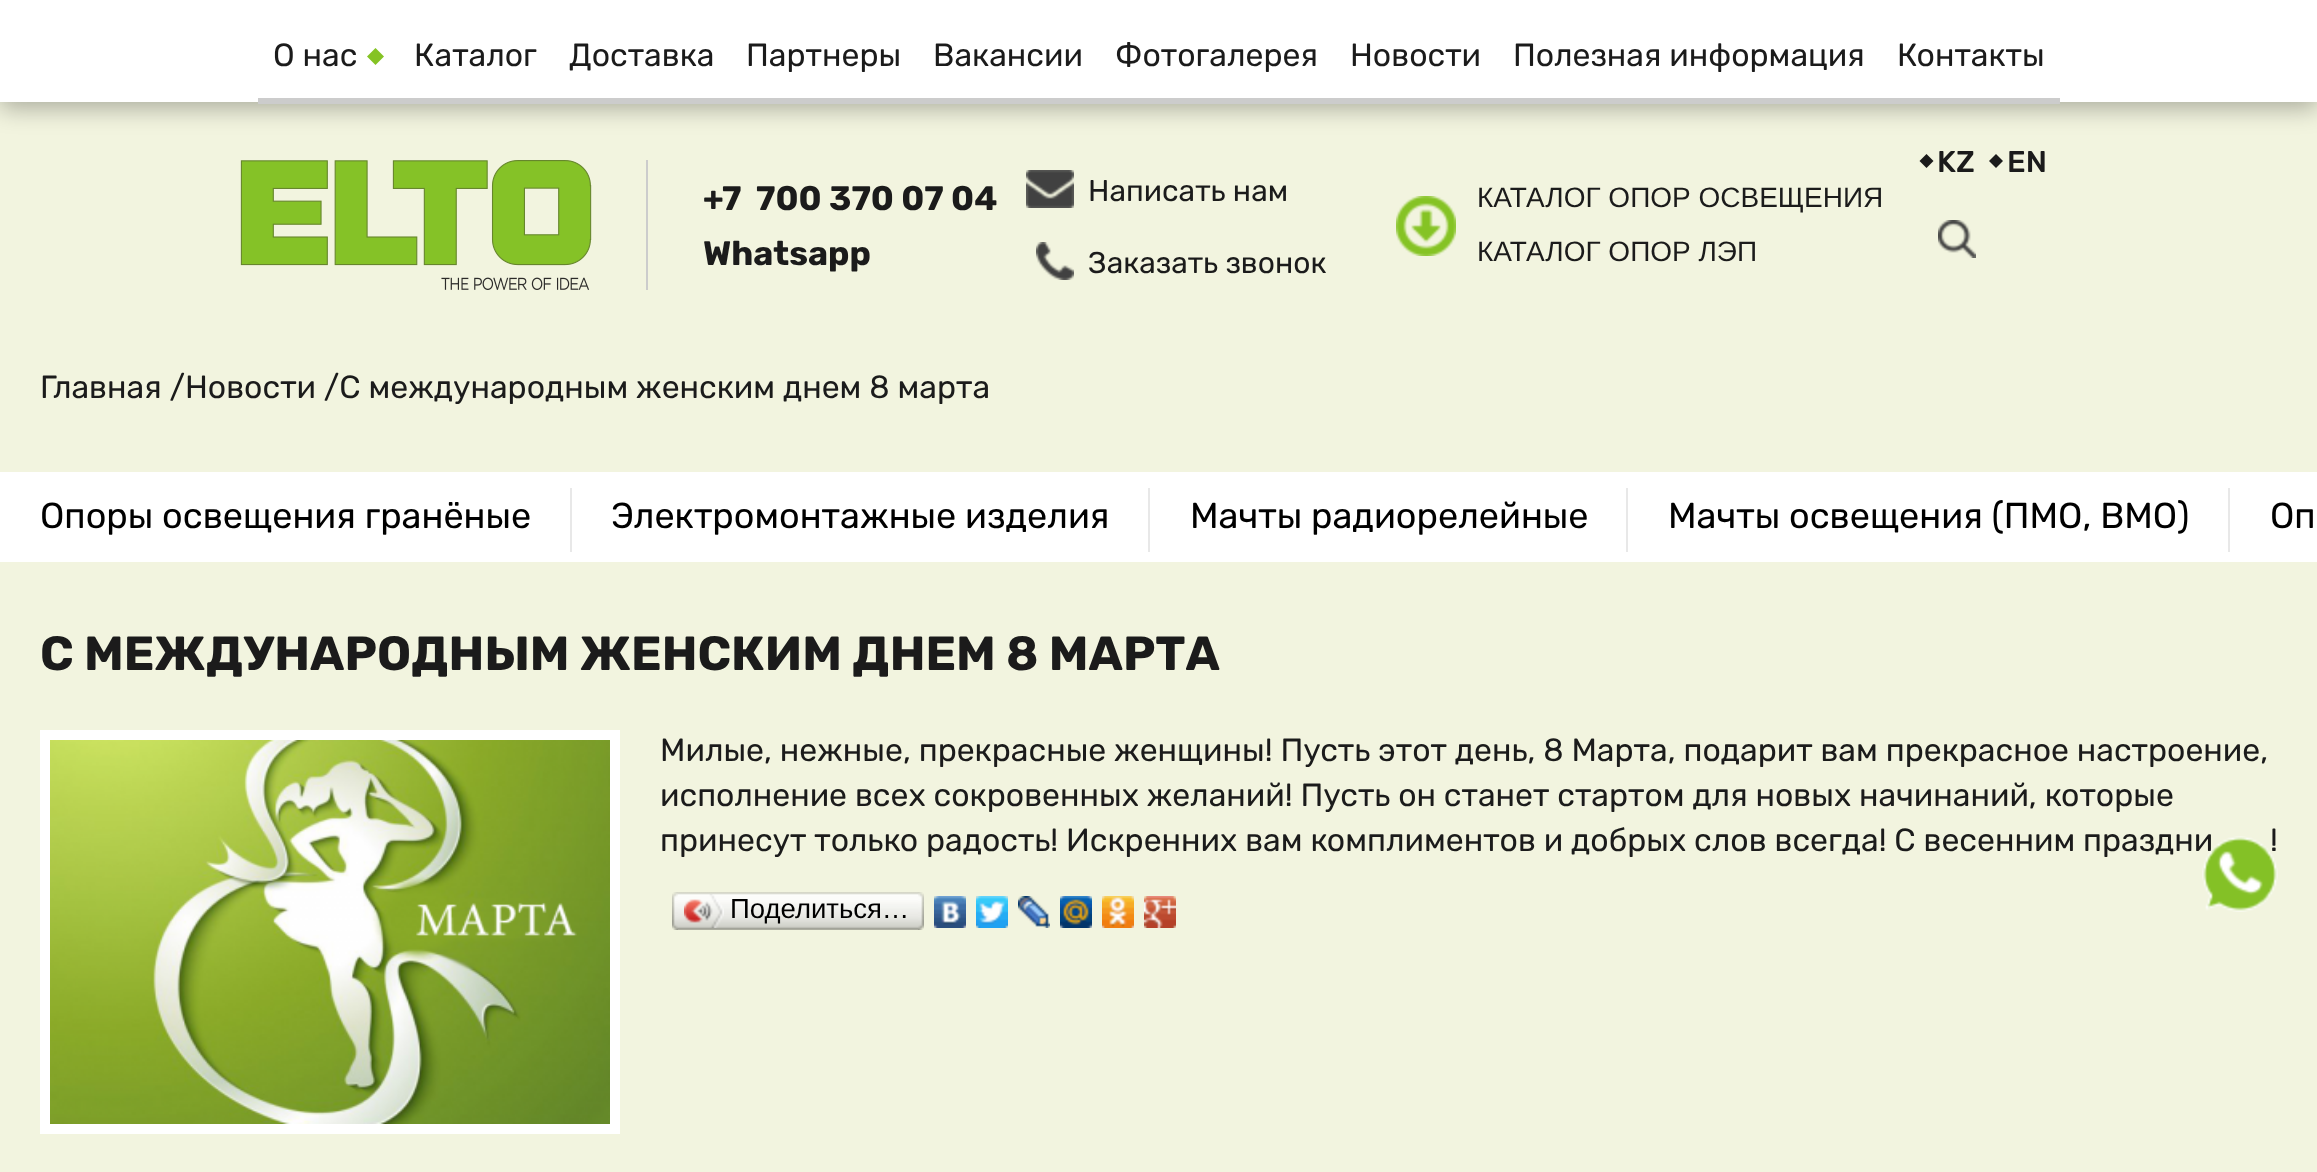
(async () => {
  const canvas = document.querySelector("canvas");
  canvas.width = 2317;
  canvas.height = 1172;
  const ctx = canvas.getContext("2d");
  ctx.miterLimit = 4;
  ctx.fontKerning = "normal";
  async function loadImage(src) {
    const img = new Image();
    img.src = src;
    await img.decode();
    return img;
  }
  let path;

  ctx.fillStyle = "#f2f4df";
  ctx.fillRect(0, 0, 2317, 1172);
  ctx.fillStyle = "rgba(0, 0, 0, 0.3)";
  ctx.filter = "blur(12px)";
  ctx.beginPath();
  ctx.rect(0, 6, 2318, 102);
  ctx.fill();
  ctx.filter = "none";
  ctx.fillStyle = "#ffffff";
  ctx.fillRect(0, 0, 2317, 102);
  ctx.fillStyle = "#cccccc";
  ctx.fillRect(258, 98, 1802, 6);
  ctx.fillStyle = "#85c324";
  path = new Path2D("M375.5 48L384 56.5L375.5 65L367 56.5Z");
  ctx.fill(path);
  ctx.drawImage(await loadImage("img/1.png"), 240, 160, 352, 130);
  ctx.fillStyle = "#cccccc";
  ctx.fillRect(646, 160, 2, 130);
  ctx.drawImage(await loadImage("img/2.png"), 1026, 170, 48, 38);
  ctx.drawImage(await loadImage("img/3.png"), 1036, 242, 38, 38);
  ctx.drawImage(await loadImage("img/4.png"), 1396, 196, 60, 60);
  ctx.fillStyle = "#1b1b1b";
  path = new Path2D("M1919.5 161L1926.5 154L1933.5 161L1926.5 168Z");
  ctx.fill(path);
  path = new Path2D("M1989 161L1996 154L2003 161L1996 168Z");
  ctx.fill(path);
  ctx.drawImage(await loadImage("img/5.png"), 1938, 220, 38, 38);
  for (const [x, y, w, h, color] of [
    [0, 472, 2317, 90, "#ffffff"],
    [570, 488, 2, 64, "#e8e8e8"],
    [1148, 488, 2, 64, "#e8e8e8"],
    [1626, 488, 2, 64, "#e8e8e8"],
    [2228, 488, 2, 64, "#e8e8e8"],
    [40, 730, 580, 404, "#ffffff"],
  ]) {
    ctx.fillStyle = color;
    ctx.fillRect(x, y, w, h);
  }
  ctx.drawImage(await loadImage("img/6.png"), 50, 740, 560, 384);
  ctx.drawImage(await loadImage("img/7.png"), 678, 892, 240, 38);
  ctx.drawImage(await loadImage("img/8.png"), 672, 892, 6, 38);
  ctx.drawImage(await loadImage("img/9.png"), 684, 894, 40, 34);
  ctx.drawImage(await loadImage("img/10.png"), 918, 892, 6, 38);
  ctx.drawImage(await loadImage("img/11.png"), 934, 896, 32, 32);
  ctx.drawImage(await loadImage("img/12.png"), 976, 896, 32, 32);
  ctx.drawImage(await loadImage("img/13.png"), 1018, 896, 32, 32);
  ctx.drawImage(await loadImage("img/14.png"), 1060, 896, 32, 32);
  ctx.drawImage(await loadImage("img/15.png"), 1102, 896, 32, 32);
  ctx.drawImage(await loadImage("img/16.png"), 1144, 896, 32, 32);
  ctx.font = "32px Rubik";
  ctx.fillStyle = "#1b1b1b";
  for (const [text, x, y] of [
    ["О нас", 273, 66],
    ["Каталог", 414, 66],
    ["Доставка", 569, 66],
    ["Партнеры", 746, 66],
    ["Вакансии", 933, 66],
    ["Фотогалерея", 1115, 66],
    ["Новости", 1350, 66],
    ["Полезная информация", 1513, 66],
    ["Контакты", 1897, 66],
  ]) {
    ctx.fillText(text, x, y);
  }
  ctx.font = "bold 34px Rubik";
  ctx.fillText("+7  700 370 07 04", 703, 210);
  ctx.fillText("Whatsapp", 703, 265);
  ctx.font = "30px Rubik";
  ctx.fillText("Написать нам", 1088, 201);
  ctx.fillText("Заказать звонок", 1088, 273);
  ctx.font = "28px Liberation Sans";
  ctx.fillText("КАТАЛОГ ОПОР ОСВЕЩЕНИЯ", 1477, 207);
  ctx.fillText("КАТАЛОГ ОПОР ЛЭП", 1477, 261);
  ctx.font = "500 30px Rubik";
  ctx.fillText("KZ", 1937, 172);
  ctx.fillText("EN", 2007, 172);
  ctx.font = "32px Rubik";
  ctx.fillText("Главная /Новости /С международным женским днем 8 марта", 40, 398);
  ctx.font = "36px Rubik";
  ctx.fillStyle = "#000000";
  for (const [text, x, y] of [
    ["Опоры освещения гранёные", 40, 528],
    ["Электромонтажные изделия", 611, 528],
    ["Мачты радиорелейные", 1190, 528],
    ["Мачты освещения (ПМО, ВМО)", 1668, 528],
    ["Оп", 2270, 528],
  ]) {
    ctx.fillText(text, x, y);
  }
  ctx.font = "bold 48px Rubik";
  ctx.fillStyle = "#1b1b1b";
  ctx.fillText("С МЕЖДУНАРОДНЫМ ЖЕНСКИМ ДНЕМ 8 МАРТА", 40, 670);
  ctx.font = "32px Rubik";
  for (const [text, x, y] of [
    ["Милые, нежные, прекрасные женщины! Пусть этот день, 8 Марта, подарит вам прекрасное настроение,", 660, 761],
    ["исполнение всех сокровенных желаний! Пусть он станет стартом для новых начинаний, которые", 660, 806],
    ["принесут только радость! Искренних вам комплиментов и добрых слов всегда! С весенним праздни", 660, 851],
    ["!", 2270, 851],
  ]) {
    ctx.fillText(text, x, y);
  }
  ctx.font = "27.5px Liberation Sans";
  ctx.fillStyle = "#000000";
  ctx.fillText("Поделиться…", 730, 918);
  ctx.drawImage(await loadImage("img/17.png"), 2202, 836, 76, 76);
})();
